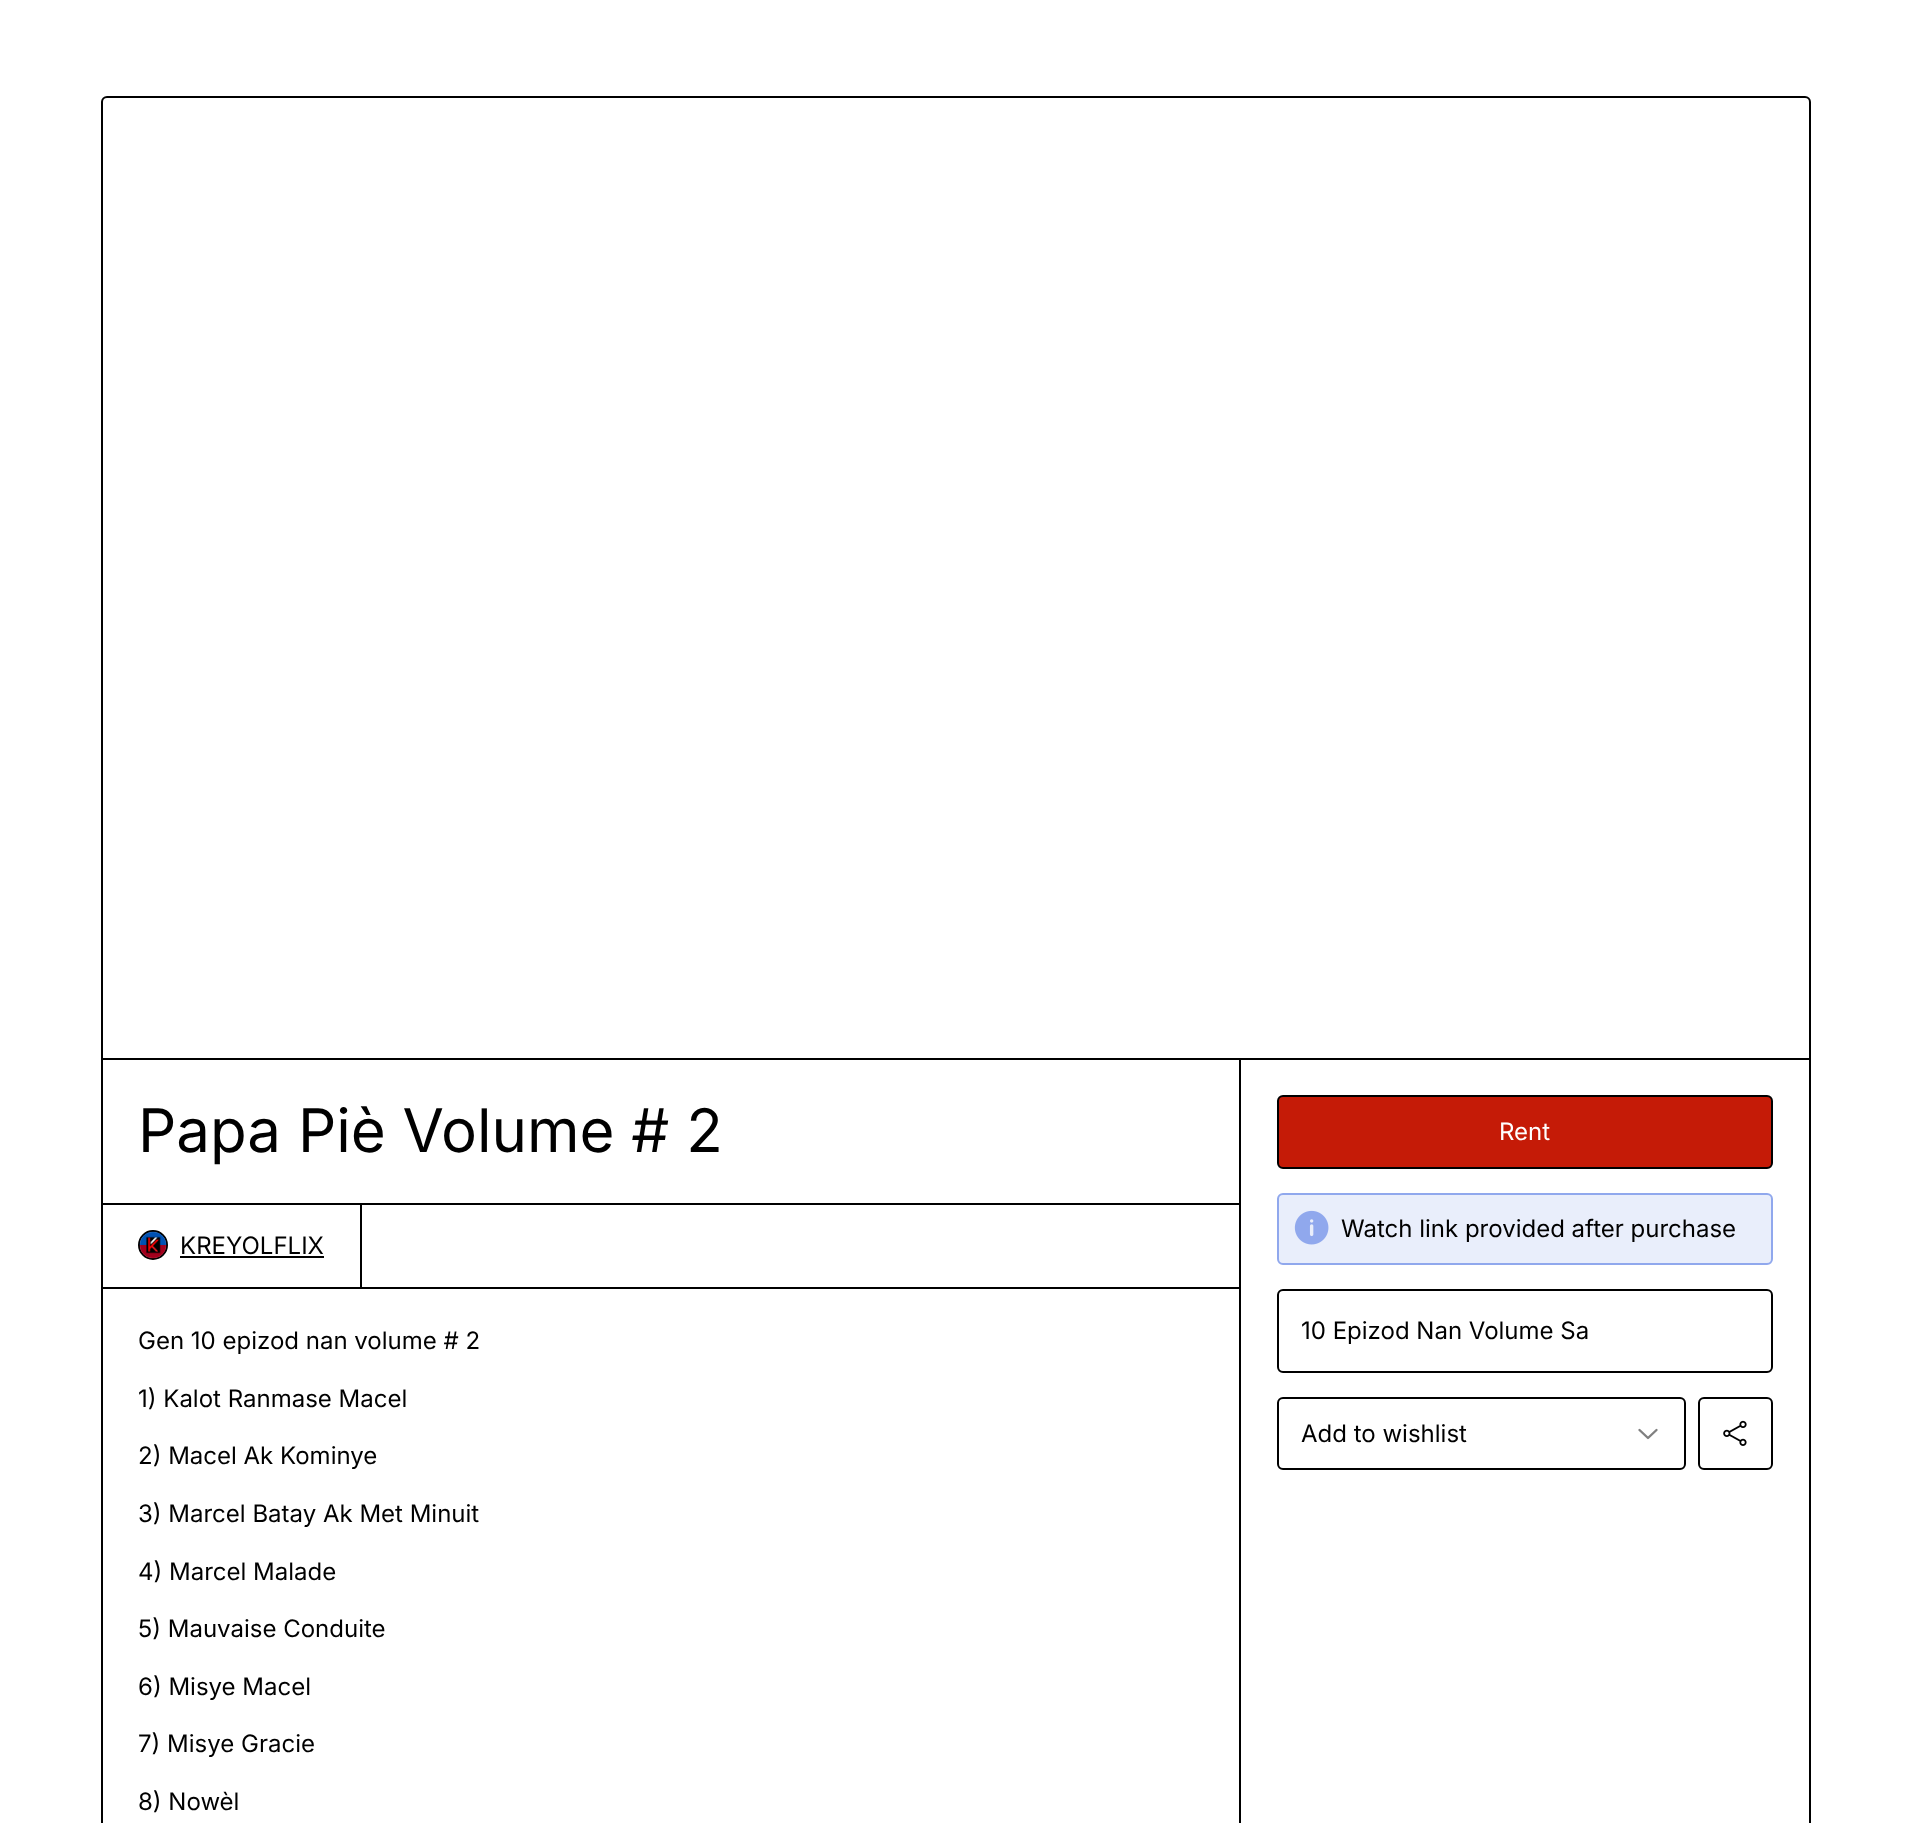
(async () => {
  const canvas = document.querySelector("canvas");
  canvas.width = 1911;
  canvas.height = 1823;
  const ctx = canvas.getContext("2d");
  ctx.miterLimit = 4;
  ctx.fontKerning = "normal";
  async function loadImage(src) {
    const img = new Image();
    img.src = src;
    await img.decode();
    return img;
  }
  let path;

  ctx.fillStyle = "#ffffff";
  ctx.fillRect(0, 0, 1911, 1823);
  ctx.beginPath();
  ctx.roundRect(102, 97, 1708, 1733, 5);
  ctx.strokeStyle = "#000000";
  ctx.lineWidth = 2;
  ctx.stroke();
  for (const [x, y, w, h, color] of [
    [1239, 1059, 2, 764, "#000000"],
    [102, 1058, 1707, 2, "#000000"],
    [362, 1203, 877, 2, "#000000"],
  ]) {
    ctx.fillStyle = color;
    ctx.fillRect(x, y, w, h);
  }
  ctx.strokeRect(102, 1204, 259, 84);
  ctx.beginPath();
  ctx.arc(153, 1245, 14, 0, Math.PI * 2);
  ctx.stroke();
  ctx.drawImage(await loadImage("img/1.png"), 139, 1231, 28, 28);
  ctx.fillRect(180, 1256, 144, 2);
  ctx.fillRect(362, 1287, 877, 2);
  ctx.fillStyle = "#c51b07";
  ctx.beginPath();
  ctx.roundRect(1278, 1096, 494, 72, 5);
  ctx.fill();
  ctx.stroke();
  ctx.fillStyle = "#e9eefb";
  ctx.beginPath();
  ctx.roundRect(1278, 1194, 494, 70, 5);
  ctx.fill();
  ctx.strokeStyle = "#90a8ed";
  ctx.stroke();
  ctx.drawImage(await loadImage("img/2.png"), 1294, 1210, 35, 35);
  ctx.beginPath();
  ctx.roundRect(1278, 1290, 494, 82, 5);
  ctx.strokeStyle = "#000000";
  ctx.stroke();
  ctx.beginPath();
  ctx.roundRect(1278, 1398, 407, 71, 5);
  ctx.stroke();
  path = new Path2D("M1656.5 1430L1648 1438L1639.5 1430");
  ctx.strokeStyle = "#808080";
  ctx.lineWidth = 2.4;
  ctx.lineCap = "round";
  ctx.lineJoin = "round";
  ctx.stroke(path);
  ctx.beginPath();
  ctx.roundRect(1699, 1398, 73, 71, 5);
  ctx.strokeStyle = "#000000";
  ctx.lineWidth = 2;
  ctx.lineJoin = "miter";
  ctx.stroke();
  ctx.drawImage(await loadImage("img/3.png"), 1723, 1420, 24, 26);
  ctx.font = "60px Inter";
  ctx.fillStyle = "#000000";
  ctx.fillText("Papa Piè Volume # 2", 138, 1152);
  ctx.font = "24px Inter";
  for (const [text, x, y] of [
    ["KREYOLFLIX", 180, 1254],
    ["Gen 10 epizod nan volume # 2", 138, 1349],
    ["1) Kalot Ranmase Macel", 138, 1407],
    ["2) Macel Ak Kominye", 138, 1464],
    ["3) Marcel Batay Ak Met Minuit", 138, 1522],
    ["4) Marcel Malade", 138, 1580],
    ["5) Mauvaise Conduite", 138, 1637],
    ["6) Misye Macel", 138, 1695],
    ["7) Misye Gracie", 138, 1752],
    ["8) Nowèl", 138, 1810],
  ]) {
    ctx.fillText(text, x, y);
  }
  ctx.fillStyle = "#ffffff";
  ctx.fillText("Rent", 1499, 1140);
  ctx.fillStyle = "#000000";
  for (const [text, x, y] of [
    ["Watch link provided after purchase", 1341, 1237],
    ["10 Epizod Nan Volume Sa", 1301, 1339],
    ["Add to wishlist", 1301, 1442],
  ]) {
    ctx.fillText(text, x, y);
  }
})();
